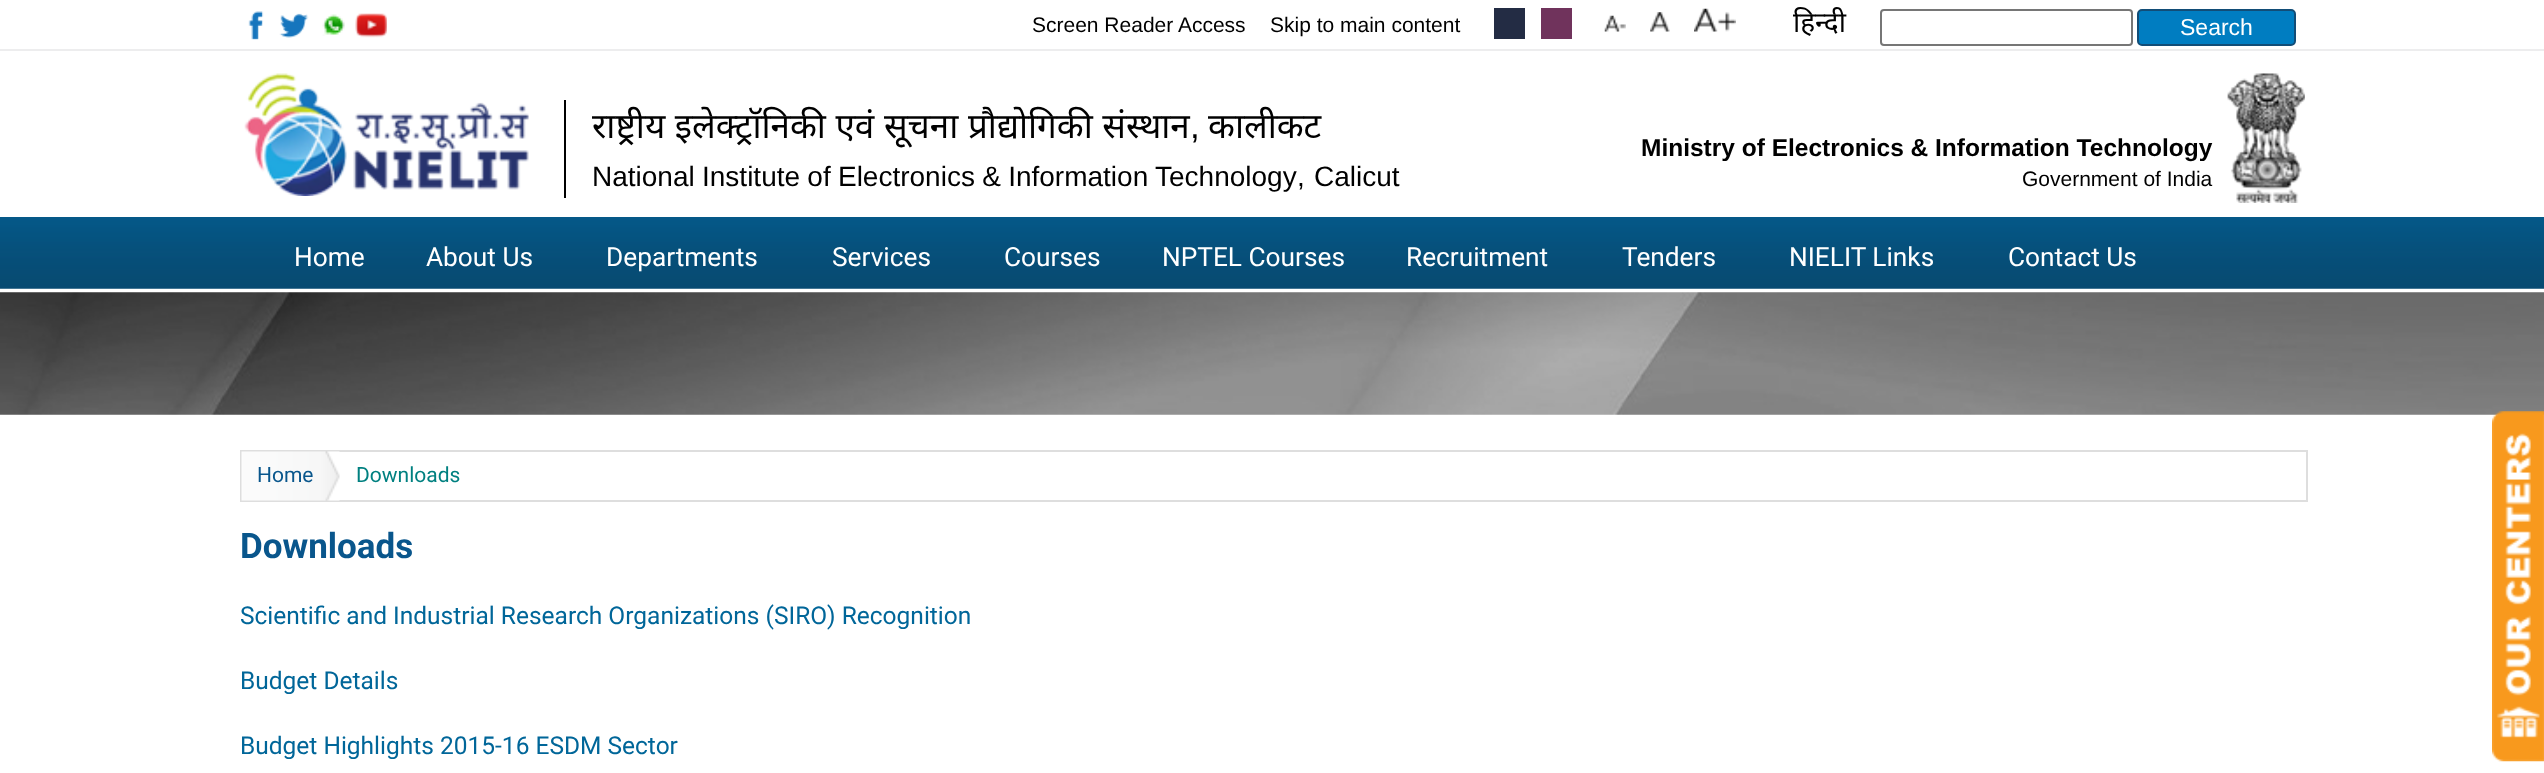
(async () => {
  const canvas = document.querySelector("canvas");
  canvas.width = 2544;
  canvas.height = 773;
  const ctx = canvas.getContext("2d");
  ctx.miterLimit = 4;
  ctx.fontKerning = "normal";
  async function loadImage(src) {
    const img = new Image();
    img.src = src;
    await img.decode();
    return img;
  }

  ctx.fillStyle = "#ffffff";
  ctx.fillRect(0, 0, 2544, 773);
  ctx.fillStyle = "#ededee";
  ctx.fillRect(0, 49, 2544, 2);
  ctx.drawImage(await loadImage("img/1.png"), 248, 11, 16, 29);
  ctx.drawImage(await loadImage("img/2.png"), 279, 13, 30, 25);
  ctx.drawImage(await loadImage("img/3.png"), 322, 14, 23, 22);
  ctx.drawImage(await loadImage("img/4.png"), 355, 13, 32, 25);
  ctx.fillStyle = "#232c44";
  ctx.fillRect(1494, 8, 31, 31);
  ctx.fillStyle = "#70335c";
  ctx.fillRect(1541, 8, 31, 31);
  ctx.drawImage(await loadImage("img/5.png"), 1604, 15, 22, 17);
  ctx.drawImage(await loadImage("img/6.png"), 1650, 12, 20, 20);
  ctx.drawImage(await loadImage("img/7.png"), 1694, 8, 42, 24);
  ctx.beginPath();
  ctx.roundRect(1881, 10, 251, 35, 3);
  ctx.strokeStyle = "#767676";
  ctx.lineWidth = 2;
  ctx.stroke();
  ctx.fillStyle = "#007dc1";
  ctx.beginPath();
  ctx.roundRect(2138, 10, 157, 35, 4);
  ctx.fill();
  ctx.strokeStyle = "#124d77";
  ctx.stroke();
  ctx.drawImage(await loadImage("img/8.png"), 244, 73, 285, 123);
  ctx.fillStyle = "#000000";
  ctx.fillRect(564, 100, 2, 98);
  ctx.drawImage(await loadImage("img/9.png"), 2227, 73, 78, 130);
  ctx.drawImage(await loadImage("img/10.png"), 0, 217, 2544, 72);
  ctx.drawImage(await loadImage("img/11.png"), 0, 292, 2544, 123);
  ctx.strokeStyle = "#dedede";
  ctx.strokeRect(241, 451, 2066, 50);
  ctx.drawImage(await loadImage("img/12.png"), 241, 451, 99, 50);
  ctx.drawImage(await loadImage("img/13.png"), 2492, 411, 52, 351);
  ctx.font = "21px Liberation Sans";
  ctx.fillText("Screen Reader Access", 1032, 32);
  ctx.fillText("Skip to main content", 1270, 32);
  ctx.font = "28px Noto Sans";
  ctx.fillText("हिन्दी", 1793, 32);
  ctx.font = "23px Liberation Sans";
  ctx.fillStyle = "#ffffff";
  ctx.fillText("Search", 2180, 35);
  ctx.wordSpacing = "0.5px";
  ctx.font = "35px Noto Sans";
  ctx.fillStyle = "#000000";
  ctx.fillText("राष्ट्रीय इलेक्ट्रॉनिकी एवं सूचना प्रौद्योगिकी संस्थान", 592, 138);
  ctx.wordSpacing = "0px";
  ctx.font = "35px Liberation Sans";
  ctx.fillText(",", 1190, 138);
  ctx.font = "35px Noto Sans";
  ctx.fillText("कालीकट", 1208, 138);
  ctx.wordSpacing = "-0.5px";
  ctx.font = "28px Liberation Sans";
  ctx.fillText("National Institute of Electronics & Information Technology", 592, 186);
  ctx.wordSpacing = "0px";
  ctx.fillText(",", 1297, 186);
  ctx.fillText("Calicut", 1314, 186);
  ctx.font = "bold 24.5px Liberation Sans";
  ctx.fillText("Ministry of Electronics & Information Technology", 1641, 156);
  ctx.font = "21px Liberation Sans";
  ctx.fillText("Government of India", 2022, 186);
  ctx.font = "26.25px Roboto";
  ctx.fillStyle = "#ffffff";
  for (const [text, x, y] of [
    ["Home", 294, 266],
    ["About Us", 426, 266],
    ["Departments", 606, 266],
    ["Services", 832, 266],
    ["Courses", 1004, 266],
    ["NPTEL Courses", 1162, 266],
    ["Recruitment", 1406, 266],
    ["Tenders", 1622, 266],
    ["NIELIT Links", 1789, 266],
    ["Contact Us", 2008, 266],
  ]) {
    ctx.fillText(text, x, y);
  }
  ctx.font = "21px Roboto";
  ctx.fillStyle = "#09568c";
  ctx.fillText("Home", 257, 482);
  ctx.fillStyle = "#008080";
  ctx.fillText("Downloads", 356, 482);
  ctx.font = "bold 35px Roboto";
  ctx.fillStyle = "#09568c";
  ctx.fillText("Downloads", 240, 558);
  ctx.font = "24.5px Roboto";
  ctx.fillStyle = "#006699";
  for (const [text, x, y] of [
    ["Scientific and Industrial Research Organizations (SIRO) Recognition", 240, 624],
    ["Budget Details", 240, 689],
    ["Budget Highlights 2015-16 ESDM Sector", 240, 754],
  ]) {
    ctx.fillText(text, x, y);
  }
})();
